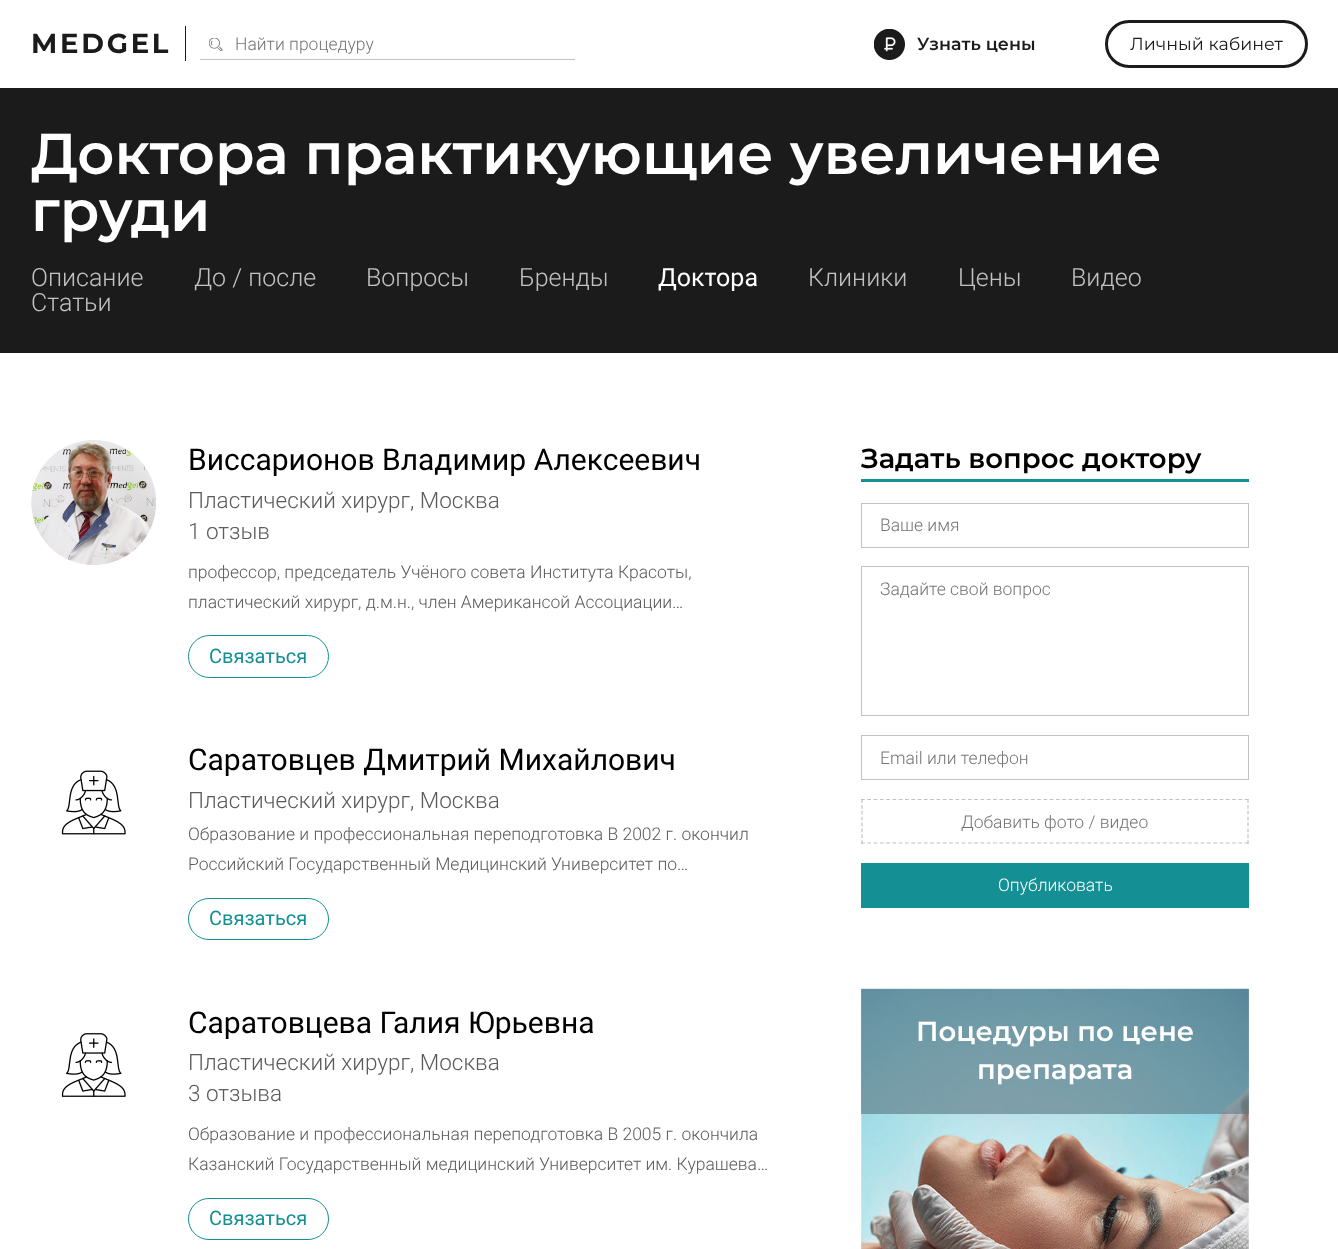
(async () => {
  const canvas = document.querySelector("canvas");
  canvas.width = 1338;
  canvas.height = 1249;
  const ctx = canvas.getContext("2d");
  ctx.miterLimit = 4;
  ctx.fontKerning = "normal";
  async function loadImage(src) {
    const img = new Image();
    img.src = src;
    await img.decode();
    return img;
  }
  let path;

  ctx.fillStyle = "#ffffff";
  ctx.fillRect(0, 0, 1338, 1249);
  ctx.fillStyle = "#1b1b1b";
  ctx.fillRect(185, 26, 1, 35);
  ctx.drawImage(await loadImage("img/1.png"), 209, 38, 14, 13);
  ctx.fillStyle = "#c2c2c2";
  ctx.fillRect(200, 59, 375, 1);
  ctx.drawImage(await loadImage("img/2.png"), 874, 29, 31, 31);
  ctx.beginPath();
  ctx.roundRect(1106.5, 21.5, 200, 45, 22.5);
  ctx.strokeStyle = "#1b1b1b";
  ctx.lineWidth = 3;
  ctx.stroke();
  ctx.fillStyle = "#1b1b1b";
  ctx.fillRect(0, 88, 1338, 265);
  ctx.drawImage(await loadImage("img/3.png"), 31, 440, 126, 125);
  ctx.beginPath();
  ctx.roundRect(188.5, 635.5, 140, 42, 21);
  ctx.strokeStyle = "#149095";
  ctx.lineWidth = 1;
  ctx.stroke();
  ctx.drawImage(await loadImage("img/4.png"), 61, 770, 65, 65);
  ctx.beginPath();
  ctx.roundRect(188.5, 898.5, 140, 41, 20.5);
  ctx.stroke();
  ctx.drawImage(await loadImage("img/5.png"), 61, 1033, 65, 64);
  ctx.beginPath();
  ctx.roundRect(188.5, 1198.5, 140, 41, 20.5);
  ctx.stroke();
  ctx.fillStyle = "#149095";
  ctx.fillRect(861, 479, 388, 3);
  ctx.strokeStyle = "#c2c2c2";
  ctx.strokeRect(861.5, 503.5, 387, 44);
  ctx.strokeRect(861.5, 566.5, 387, 149);
  ctx.strokeRect(861.5, 735.5, 387, 44);
  ctx.save();
  ctx.beginPath();
  ctx.rect(861, 799, 388, 45);
  ctx.clip();
  path = new Path2D("M861 799.5H1249");
  ctx.lineWidth = 1.2;
  ctx.setLineDash([3.75, 2.54]);
  ctx.stroke(path);
  ctx.restore();
  path = new Path2D("M1248 799V844");
  ctx.lineWidth = 1.2;
  ctx.setLineDash([3.75, 2.14]);
  ctx.stroke(path);
  path = new Path2D("M861 843H1249");
  ctx.setLineDash([3.75, 2.54]);
  ctx.stroke(path);
  path = new Path2D("M862 799V844");
  ctx.setLineDash([3.75, 2.14]);
  ctx.stroke(path);
  ctx.fillRect(861, 863, 388, 45);
  ctx.drawImage(await loadImage("img/6.png"), 861, 988, 388, 261);
  ctx.fillStyle = "rgba(95, 124, 137, 0.66)";
  ctx.fillRect(861, 989, 388, 125);
  ctx.letterSpacing = "2.75px";
  ctx.font = "bold 27.5px Montserrat";
  ctx.fillStyle = "#1b1b1b";
  ctx.fillText("MEDGEL", 31, 53);
  ctx.letterSpacing = "0px";
  ctx.font = "300 17.5px Roboto";
  ctx.fillStyle = "#757575";
  ctx.fillText("Найти процедуру", 235, 50);
  ctx.font = "600 17.5px Montserrat";
  ctx.fillStyle = "#1b1b1b";
  ctx.fillText("Узнать цены", 917, 50);
  ctx.font = "17.5px Montserrat";
  ctx.fillText("Личный кабинет", 1130, 50);
  ctx.font = "600 57.5px Montserrat";
  ctx.fillStyle = "#ffffff";
  ctx.fillText("Доктора практикующие увеличение", 31, 174);
  ctx.fillText("груди", 31, 231);
  ctx.font = "300 25px Roboto";
  ctx.fillStyle = "#c2c2c2";
  for (const [text, x, y] of [
    ["Описание", 31, 286],
    ["До / после", 194, 286],
    ["Вопросы", 366, 286],
    ["Бренды", 519, 286],
  ]) {
    ctx.fillText(text, x, y);
  }
  ctx.font = "25px Roboto";
  ctx.fillStyle = "#ffffff";
  ctx.fillText("Доктора", 658, 286);
  ctx.font = "300 25px Roboto";
  ctx.fillStyle = "#c2c2c2";
  for (const [text, x, y] of [
    ["Клиники", 808, 286],
    ["Цены", 958, 286],
    ["Видео", 1071, 286],
    ["Статьи", 31, 311],
  ]) {
    ctx.fillText(text, x, y);
  }
  ctx.font = "30px Roboto";
  ctx.fillStyle = "#000000";
  ctx.fillText("Виссарионов Владимир Алексеевич", 188, 470);
  ctx.font = "300 22.5px Roboto";
  ctx.fillStyle = "#5b5b5b";
  ctx.fillText("Пластический хирург, Москва", 188, 508);
  ctx.fillText("1 отзыв", 188, 539);
  ctx.font = "300 17.5px Roboto";
  ctx.fillText("профессор, председатель Учёного совета Института Красоты,", 188, 578);
  ctx.fillText("пластический хирург, д.м.н., член Американсой Ассоциации…", 188, 608);
  ctx.font = "20px Roboto";
  ctx.fillStyle = "#149095";
  ctx.fillText("Связаться", 209, 663);
  ctx.font = "30px Roboto";
  ctx.fillStyle = "#000000";
  ctx.fillText("Саратовцев Дмитрий Михайлович", 188, 770);
  ctx.font = "300 22.5px Roboto";
  ctx.fillStyle = "#5b5b5b";
  ctx.fillText("Пластический хирург, Москва", 188, 808);
  ctx.font = "300 17.5px Roboto";
  ctx.fillText("Образование и профессиональная переподготовка В 2002 г. окончил", 188, 840);
  ctx.fillText("Российский Государственный Медицинский Университет по…", 188, 870);
  ctx.font = "20px Roboto";
  ctx.fillStyle = "#149095";
  ctx.fillText("Связаться", 209, 925);
  ctx.font = "30px Roboto";
  ctx.fillStyle = "#000000";
  ctx.fillText("Саратовцева Галия Юрьевна", 188, 1033);
  ctx.font = "300 22.5px Roboto";
  ctx.fillStyle = "#5b5b5b";
  ctx.fillText("Пластический хирург, Москва", 188, 1070);
  ctx.fillText("3 отзыва", 188, 1101);
  ctx.font = "300 17.5px Roboto";
  ctx.fillText("Образование и профессиональная переподготовка В 2005 г. окончила", 188, 1140);
  ctx.fillText("Казанский Государственный медицинский Университет им. Курашева…", 188, 1170);
  ctx.font = "20px Roboto";
  ctx.fillStyle = "#149095";
  ctx.fillText("Связаться", 209, 1225);
  ctx.font = "600 27.5px Montserrat";
  ctx.fillStyle = "#000000";
  ctx.fillText("Задать вопрос доктору", 861, 468);
  ctx.font = "300 17.5px Roboto";
  ctx.fillStyle = "#757575";
  for (const [text, x, y] of [
    ["Ваше имя", 880, 531],
    ["Задайте свой вопрос", 880, 595],
    ["Email или телефон", 880, 764],
    ["Добавить фото / видео", 961, 828],
  ]) {
    ctx.fillText(text, x, y);
  }
  ctx.fillStyle = "#ffffff";
  ctx.fillText("Опубликовать", 998, 891);
  ctx.font = "600 27.5px Montserrat";
  ctx.fillText("Поцедуры по цене", 916, 1041);
  ctx.fillText("препарата", 977, 1079);
})();
